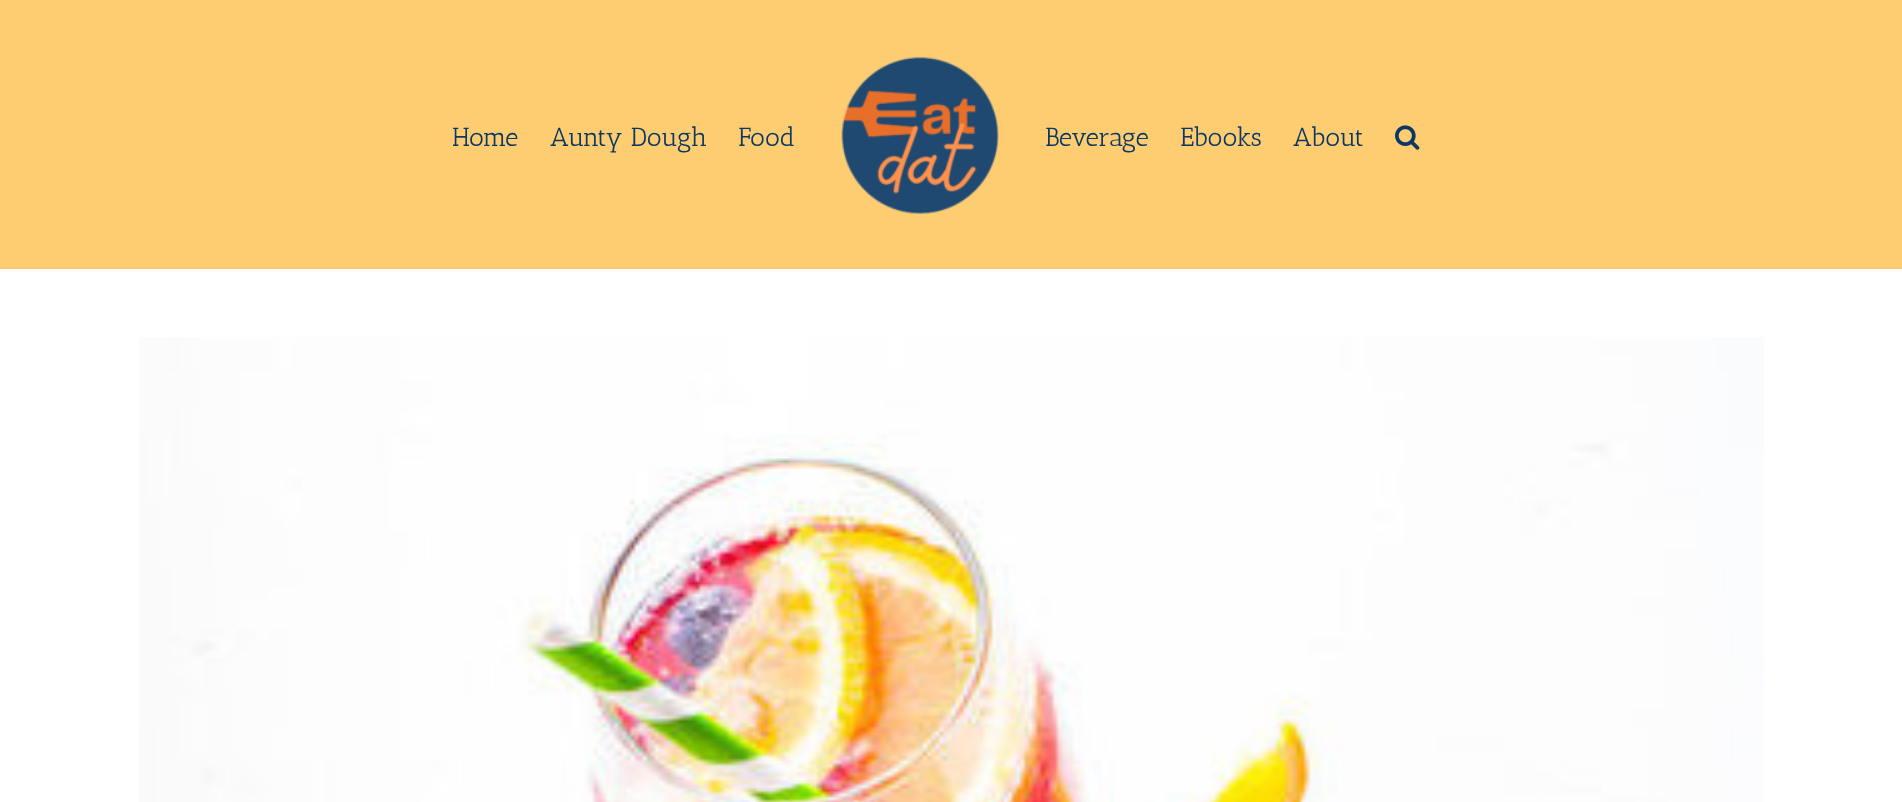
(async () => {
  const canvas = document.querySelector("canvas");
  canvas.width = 1902;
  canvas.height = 802;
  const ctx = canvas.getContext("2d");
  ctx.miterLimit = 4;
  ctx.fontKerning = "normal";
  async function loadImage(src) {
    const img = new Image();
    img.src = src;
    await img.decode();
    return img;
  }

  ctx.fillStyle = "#ffffff";
  ctx.fillRect(0, 0, 1902, 802);
  ctx.fillStyle = "#fecd72";
  ctx.fillRect(0, 0, 1902, 269);
  ctx.drawImage(await loadImage("img/1.png"), 841, 56, 158, 158);
  ctx.drawImage(await loadImage("img/2.png"), 1395, 125, 25, 25);
  ctx.drawImage(await loadImage("img/3.png"), 139, 337, 1625, 465);
  ctx.font = "26.25px Antic Slab";
  ctx.fillStyle = "#0a3864";
  for (const [text, x, y] of [
    ["Home", 452, 146],
    ["Aunty Dough", 550, 146],
    ["Food", 738, 146],
    ["Beverage", 1045, 146],
    ["Ebooks", 1180, 146],
    ["About", 1293, 146],
  ]) {
    ctx.fillText(text, x, y);
  }
})();
